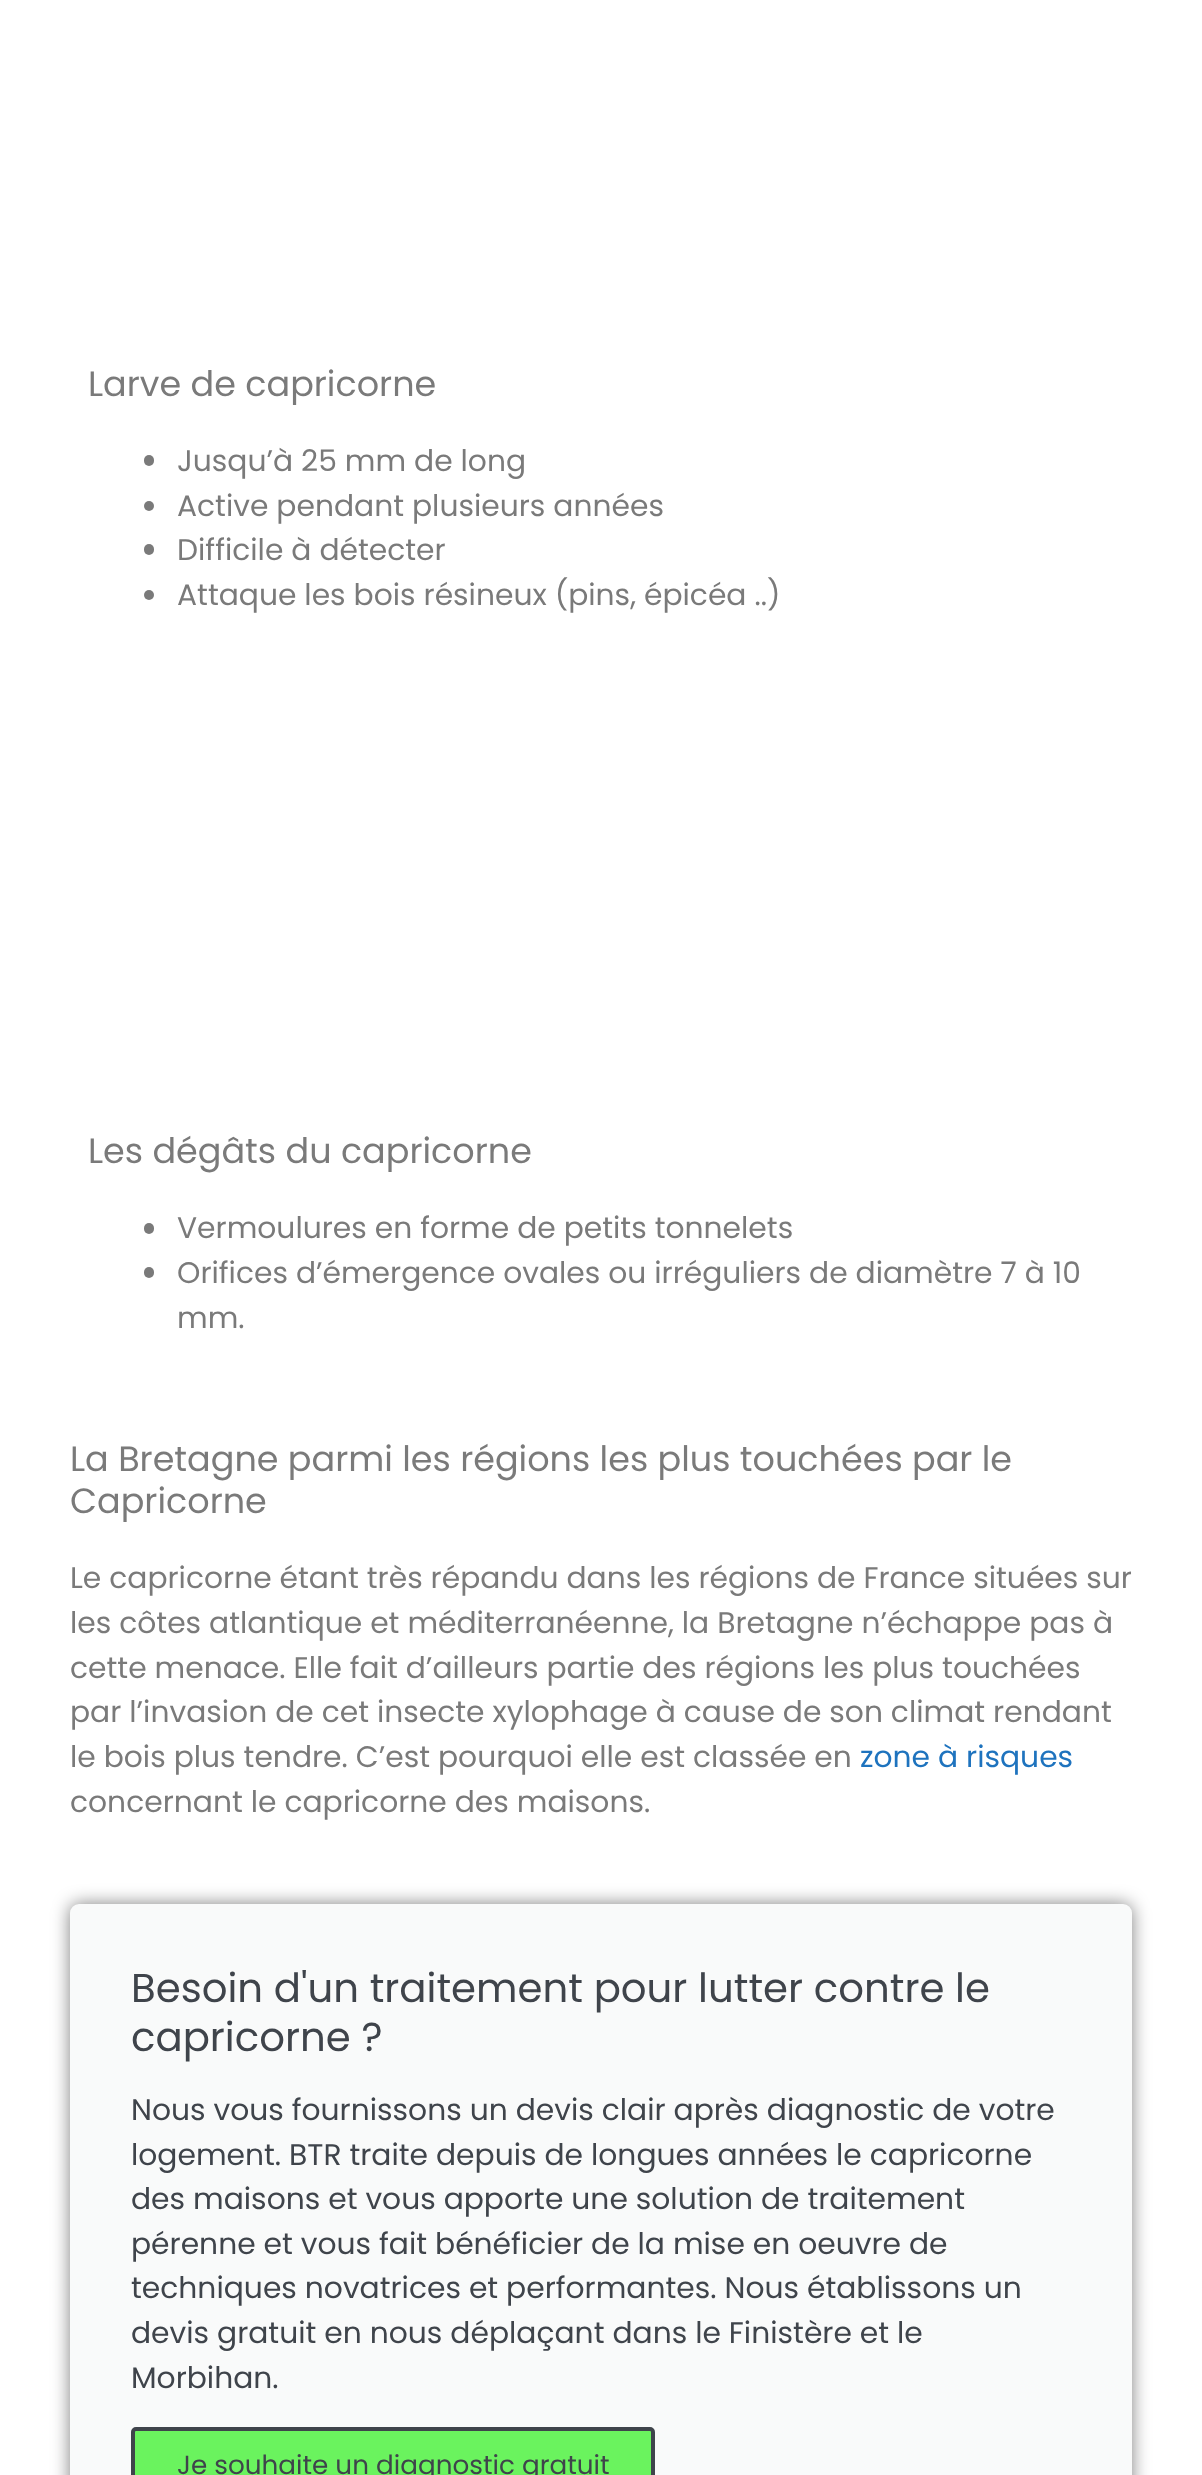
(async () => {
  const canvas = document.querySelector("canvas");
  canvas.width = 1202;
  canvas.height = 2475;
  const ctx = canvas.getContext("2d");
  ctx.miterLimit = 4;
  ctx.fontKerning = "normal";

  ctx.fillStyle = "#ffffff";
  ctx.fillRect(0, 0, 1202, 2475);
  ctx.fillStyle = "#7a7a7a";
  ctx.beginPath();
  ctx.roundRect(144, 455, 10, 11, 5);
  ctx.fill();
  ctx.beginPath();
  ctx.arc(149, 506, 5, 0, Math.PI * 2);
  ctx.fill();
  ctx.beginPath();
  ctx.roundRect(144, 544, 10, 11, 5);
  ctx.fill();
  ctx.beginPath();
  ctx.arc(149, 595, 5, 0, Math.PI * 2);
  ctx.fill();
  ctx.beginPath();
  ctx.roundRect(144, 1223, 10, 11, 5);
  ctx.fill();
  ctx.beginPath();
  ctx.roundRect(144, 1267, 10, 11, 5);
  ctx.fill();
  ctx.fillStyle = "rgba(0, 0, 0, 0.5)";
  ctx.filter = "blur(9px)";
  ctx.beginPath();
  ctx.roundRect(70, 1904, 1062, 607, 9);
  ctx.fill();
  ctx.filter = "none";
  ctx.fillStyle = "#f9fafa";
  ctx.beginPath();
  ctx.roundRect(70, 1904, 1062, 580, 9);
  ctx.fill();
  ctx.fillStyle = "#6af35e";
  ctx.beginPath();
  ctx.roundRect(133, 2429, 520, 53, 3);
  ctx.fill();
  ctx.strokeStyle = "#3f444b";
  ctx.lineWidth = 4;
  ctx.stroke();
  ctx.font = "35px Poppins";
  ctx.fillStyle = "#7a7a7a";
  ctx.fillText("Larve de capricorne", 88, 396);
  ctx.font = "29.75px Poppins";
  for (const [text, x, y] of [
    ["Jusqu’à 25 mm de long", 177, 471],
    ["Active pendant plusieurs années", 177, 516],
    ["Difficile à détecter", 177, 560],
    ["Attaque les bois résineux (pins, épicéa ..)", 177, 605],
  ]) {
    ctx.fillText(text, x, y);
  }
  ctx.font = "35px Poppins";
  ctx.fillText("Les dégâts du capricorne", 88, 1163);
  ctx.font = "29.75px Poppins";
  for (const [text, x, y] of [
    ["Vermoulures en forme de petits tonnelets", 177, 1238],
    ["Orifices d’émergence ovales ou irréguliers de diamètre 7 à 10", 177, 1283],
    ["mm.", 177, 1328],
  ]) {
    ctx.fillText(text, x, y);
  }
  ctx.font = "35px Poppins";
  ctx.fillText("La Bretagne parmi les régions les plus touchées par le", 70, 1471);
  ctx.fillText("Capricorne", 70, 1513);
  ctx.font = "29.75px Poppins";
  for (const [text, x, y] of [
    ["Le capricorne étant très répandu dans les régions de France situées sur", 70, 1588],
    ["les côtes atlantique et méditerranéenne, la Bretagne n’échappe pas à", 70, 1633],
    ["cette menace. Elle fait d’ailleurs partie des régions les plus touchées", 70, 1678],
    ["par l’invasion de cet insecte xylophage à cause de son climat rendant", 70, 1722],
    ["le bois plus tendre. C’est pourquoi elle est classée en", 70, 1767],
  ]) {
    ctx.fillText(text, x, y);
  }
  ctx.fillStyle = "#1e73be";
  ctx.fillText("zone à risques", 860, 1767);
  ctx.fillStyle = "#7a7a7a";
  ctx.fillText("concernant le capricorne des maisons.", 70, 1812);
  ctx.font = "40.25px Poppins";
  ctx.fillStyle = "#3f444b";
  ctx.fillText("Besoin d'un traitement pour lutter contre le", 131, 2002);
  ctx.fillText("capricorne ?", 131, 2051);
  ctx.font = "29.75px Poppins";
  for (const [text, x, y] of [
    ["Nous vous fournissons un devis clair après diagnostic de votre", 131, 2120],
    ["logement. BTR traite depuis de longues années le capricorne", 131, 2165],
    ["des maisons et vous apporte une solution de traitement", 131, 2209],
    ["pérenne et vous fait bénéficier de la mise en oeuvre de", 131, 2254],
    ["techniques novatrices et performantes. Nous établissons un", 131, 2298],
    ["devis gratuit en nous déplaçant dans le Finistère et le", 131, 2343],
    ["Morbihan.", 131, 2388],
  ]) {
    ctx.fillText(text, x, y);
  }
  ctx.font = "26.25px Poppins";
  ctx.fillText("Je souhaite un diagnostic gratuit", 177, 2474);
})();
